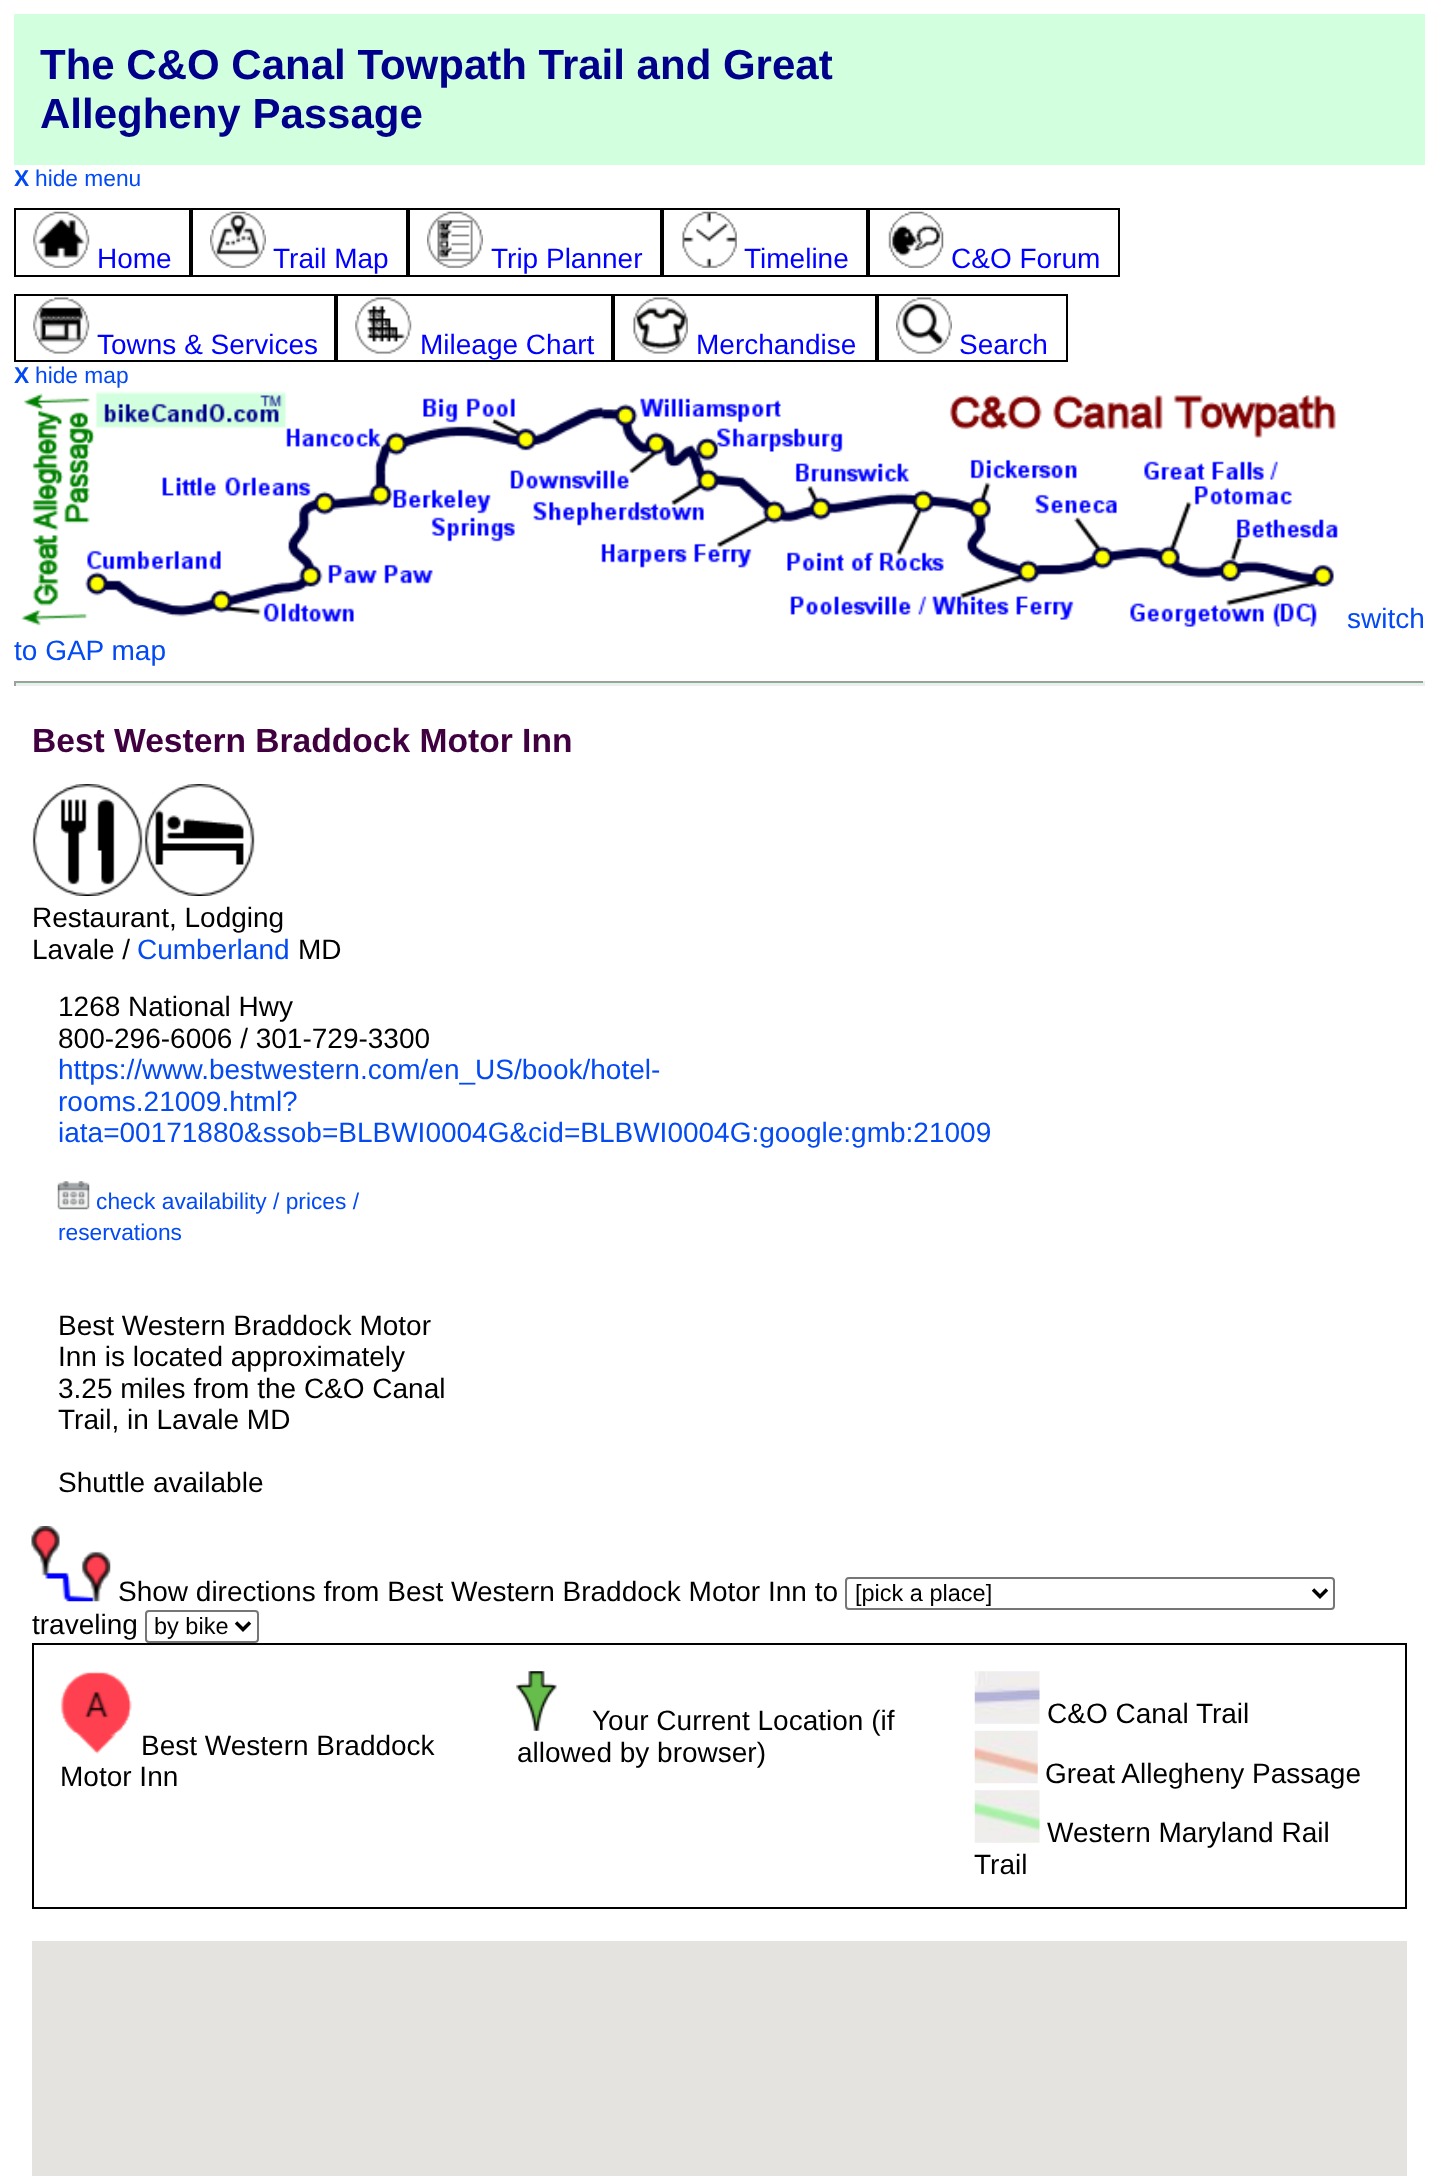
(async () => {
  const canvas = document.querySelector("canvas");
  canvas.width = 1438;
  canvas.height = 2176;
  const ctx = canvas.getContext("2d");
  ctx.miterLimit = 4;
  ctx.fontKerning = "normal";
  async function loadImage(src) {
    const img = new Image();
    img.src = src;
    await img.decode();
    return img;
  }
  let path;

  ctx.fillStyle = "#ffffff";
  ctx.fillRect(0, 0, 1438, 2176);
  ctx.fillStyle = "#d2ffde";
  ctx.fillRect(14, 14, 1411, 151);
  ctx.strokeStyle = "#000000";
  ctx.lineWidth = 2;
  ctx.strokeRect(15, 209, 175, 67);
  ctx.drawImage(await loadImage("img/1.png"), 33, 211, 57, 57);
  ctx.strokeRect(192, 209, 215, 67);
  ctx.drawImage(await loadImage("img/2.png"), 210, 211, 56, 57);
  ctx.strokeRect(409, 209, 252, 67);
  ctx.drawImage(await loadImage("img/3.png"), 427, 211, 56, 57);
  ctx.strokeRect(663, 209, 204, 67);
  ctx.drawImage(await loadImage("img/4.png"), 682, 211, 55, 57);
  ctx.strokeRect(869, 209, 250, 67);
  ctx.drawImage(await loadImage("img/5.png"), 888, 211, 56, 57);
  ctx.strokeRect(15, 295, 320, 66);
  ctx.drawImage(await loadImage("img/6.png"), 33, 297, 57, 57);
  ctx.strokeRect(337, 295, 275, 66);
  ctx.drawImage(await loadImage("img/7.png"), 355, 297, 57, 57);
  ctx.strokeRect(614, 295, 262, 66);
  ctx.drawImage(await loadImage("img/8.png"), 633, 297, 55, 57);
  ctx.strokeRect(878, 295, 189, 66);
  ctx.drawImage(await loadImage("img/9.png"), 896, 297, 56, 57);
  ctx.drawImage(await loadImage("img/10.png"), 20, 391, 1318, 236);
  for (const [x, y, w, h, color] of [
    [14, 683, 1411, 1, "#d2ffde"],
    [14, 681, 1411, 2, "#9f9f9f"],
    [1423, 681, 2, 5, "#eeeeee"],
    [14, 684, 1411, 2, "#eeeeee"],
    [14, 681, 2, 5, "#9f9f9f"],
  ]) {
    ctx.fillStyle = color;
    ctx.fillRect(x, y, w, h);
  }
  ctx.drawImage(await loadImage("img/11.png"), 32, 784, 111, 112);
  ctx.drawImage(await loadImage("img/12.png"), 144, 784, 111, 112);
  ctx.drawImage(await loadImage("img/13.png"), 57, 1181, 33, 29);
  ctx.drawImage(await loadImage("img/14.png"), 31, 1526, 80, 76);
  ctx.beginPath();
  ctx.roundRect(846, 1578, 488, 31, 3);
  ctx.strokeStyle = "#767676";
  ctx.stroke();
  path = new Path2D("M1313 1589.5L1320 1596.5L1327 1589.5");
  ctx.strokeStyle = "#000000";
  ctx.lineWidth = 3.5;
  ctx.stroke(path);
  ctx.beginPath();
  ctx.roundRect(146, 1611, 112, 31, 3);
  ctx.strokeStyle = "#767676";
  ctx.lineWidth = 2;
  ctx.stroke();
  path = new Path2D("M236 1622.5L243 1629.5L250 1622.5");
  ctx.strokeStyle = "#000000";
  ctx.lineWidth = 3.5;
  ctx.stroke(path);
  ctx.lineWidth = 2;
  ctx.strokeRect(33, 1644, 1373, 264);
  ctx.drawImage(await loadImage("img/15.png"), 60, 1671, 72, 83);
  ctx.drawImage(await loadImage("img/16.png"), 516, 1671, 41, 60);
  ctx.drawImage(await loadImage("img/17.png"), 974, 1671, 66, 53);
  ctx.drawImage(await loadImage("img/18.png"), 974, 1730, 64, 54);
  ctx.drawImage(await loadImage("img/19.png"), 974, 1790, 66, 53);
  ctx.fillStyle = "#e5e3df";
  ctx.fillRect(32, 1941, 1375, 235);
  ctx.font = "bold 42px Liberation Sans";
  ctx.fillStyle = "#00008b";
  ctx.fillText("The C&O Canal Towpath Trail and Great", 40, 79);
  ctx.fillText("Allegheny Passage", 40, 128);
  ctx.font = "bold 22.75px Liberation Sans";
  ctx.fillStyle = "#034af3";
  ctx.fillText("X", 14, 186);
  ctx.font = "22.75px Liberation Sans";
  ctx.fillText("hide menu", 35, 186);
  ctx.font = "28px Liberation Sans";
  ctx.fillStyle = "#0000ff";
  for (const [text, x, y] of [
    ["Home", 97, 268],
    ["Trail Map", 273, 268],
    ["Trip Planner", 491, 268],
    ["Timeline", 744, 268],
    ["C&O Forum", 951, 268],
    ["Towns & Services", 97, 354],
    ["Mileage Chart", 420, 354],
    ["Merchandise", 696, 354],
    ["Search", 959, 354],
  ]) {
    ctx.fillText(text, x, y);
  }
  ctx.font = "bold 22.75px Liberation Sans";
  ctx.fillStyle = "#034af3";
  ctx.fillText("X", 14, 383);
  ctx.font = "22.75px Liberation Sans";
  ctx.fillText("hide map", 35, 383);
  ctx.font = "28px Liberation Sans";
  ctx.fillText("switch", 1347, 628);
  ctx.fillText("to GAP map", 14, 660);
  ctx.font = "bold 33.6px Liberation Sans";
  ctx.fillStyle = "#400040";
  ctx.fillText("Best Western Braddock Motor Inn", 32, 752);
  ctx.font = "28px Liberation Sans";
  ctx.fillStyle = "#000000";
  ctx.fillText("Restaurant, Lodging", 32, 927);
  ctx.fillText("Lavale /", 32, 959);
  ctx.fillStyle = "#034af3";
  ctx.fillText("Cumberland", 137, 959);
  ctx.fillStyle = "#000000";
  for (const [text, x, y] of [
    ["MD", 298, 959],
    ["1268 National Hwy", 58, 1016],
    ["800-296-6006 / 301-729-3300", 58, 1048],
  ]) {
    ctx.fillText(text, x, y);
  }
  ctx.fillStyle = "#034af3";
  for (const [text, x, y] of [
    ["https://www.bestwestern.com/en_US/book/hotel-", 58, 1079],
    ["rooms.21009.html?", 58, 1111],
    ["iata=00171880&ssob=BLBWI0004G&cid=BLBWI0004G:google:gmb:21009", 58, 1142],
  ]) {
    ctx.fillText(text, x, y);
  }
  ctx.font = "22.75px Liberation Sans";
  ctx.fillText("check availability / prices /", 96, 1209);
  ctx.fillText("reservations", 58, 1240);
  ctx.font = "28px Liberation Sans";
  ctx.fillStyle = "#000000";
  for (const [text, x, y] of [
    ["Best Western Braddock Motor", 58, 1335],
    ["Inn is located approximately", 58, 1366],
    ["3.25 miles from the C&O Canal", 58, 1398],
    ["Trail, in Lavale MD", 58, 1429],
    ["Shuttle available", 58, 1492],
    ["Show directions from Best Western Braddock Motor Inn to", 118, 1601],
  ]) {
    ctx.fillText(text, x, y);
  }
  ctx.font = "23.5px Liberation Sans";
  ctx.fillText("[pick a place]", 855, 1601);
  ctx.font = "28px Liberation Sans";
  ctx.fillText("traveling", 32, 1634);
  ctx.font = "23.5px Liberation Sans";
  ctx.fillText("by bike", 154, 1634);
  ctx.font = "28px Liberation Sans";
  for (const [text, x, y] of [
    ["Best Western Braddock", 141, 1755],
    ["Motor Inn", 60, 1786],
    ["Your Current Location (if", 592, 1730],
    ["allowed by browser)", 517, 1762],
    ["C&O Canal Trail", 1047, 1723],
    ["Great Allegheny Passage", 1045, 1783],
    ["Western Maryland Rail", 1047, 1842],
    ["Trail", 974, 1874],
  ]) {
    ctx.fillText(text, x, y);
  }
})();
